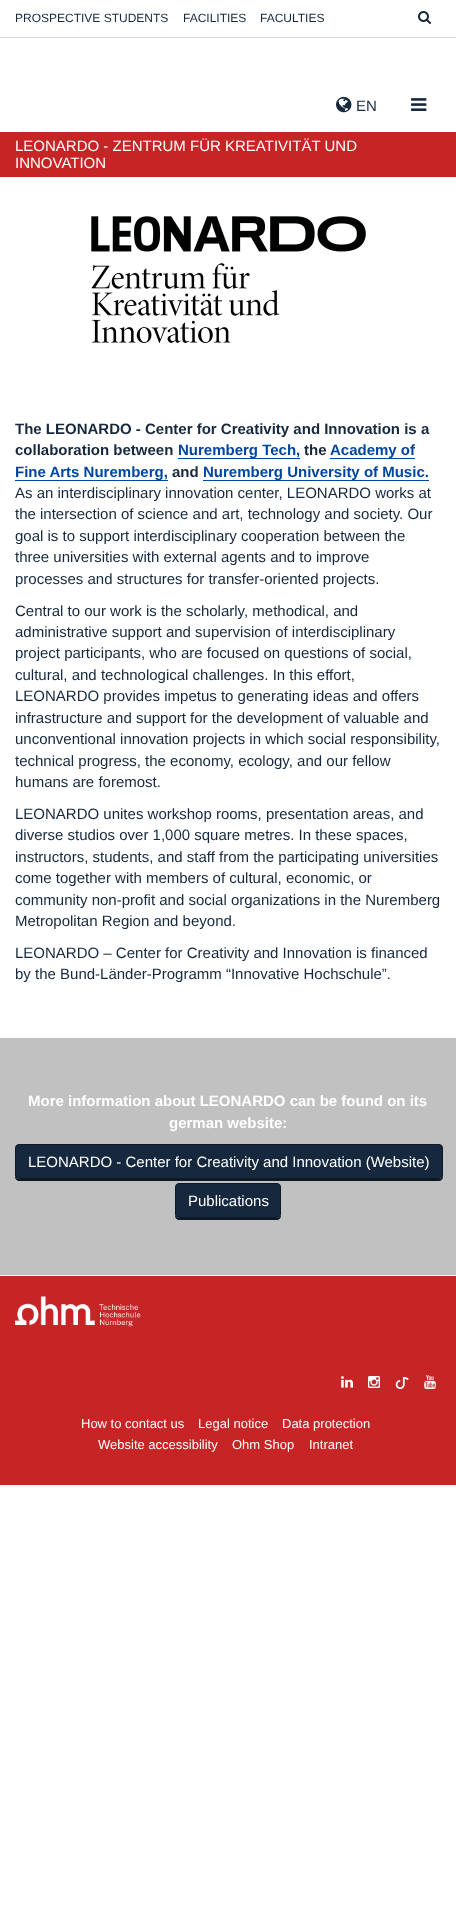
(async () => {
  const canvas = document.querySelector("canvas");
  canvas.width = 456;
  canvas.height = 1920;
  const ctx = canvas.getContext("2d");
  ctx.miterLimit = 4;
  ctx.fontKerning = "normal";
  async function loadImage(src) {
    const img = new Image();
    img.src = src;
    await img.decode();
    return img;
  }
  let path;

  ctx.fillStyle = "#ffffff";
  ctx.fillRect(0, 0, 456, 1920);
  ctx.fillStyle = "#d2d8e0";
  ctx.fillRect(0, 37, 456, 1);
  ctx.drawImage(await loadImage("img/1.png"), 418, 11, 13, 13);
  ctx.drawImage(await loadImage("img/2.png"), 336, 96, 16, 17);
  ctx.drawImage(await loadImage("img/3.png"), 411, 98, 16, 13);
  ctx.fillStyle = "#c72426";
  ctx.fillRect(0, 132, 456, 45);
  ctx.drawImage(await loadImage("img/4.png"), 91, 216, 275, 127);
  for (const [x, y, w, h, color] of [
    [178, 458, 122, 1, "#0046a0"],
    [330, 458, 85, 1, "#0046a0"],
    [15, 480, 153, 1, "#0046a0"],
    [203, 480, 226, 1, "#0046a0"],
    [0, 1038, 456, 237, "#c1c1c1"],
  ]) {
    ctx.fillStyle = color;
    ctx.fillRect(x, y, w, h);
  }
  ctx.fillStyle = "#0e1925";
  path = new Path2D("M15 1175V1177C15 1179 17 1181 19 1181H439C441 1181 443 1179 443 1177V1175C443 1177 441 1179 439 1179H19C17 1179 15 1177 15 1175Z");
  ctx.fill(path);
  ctx.fillStyle = "#16283d";
  ctx.beginPath();
  ctx.roundRect(15.5, 1144.5, 427, 34, 3.5);
  ctx.fill();
  ctx.strokeStyle = "#0e1925";
  ctx.stroke();
  ctx.fillStyle = "#0e1925";
  path = new Path2D("M175 1214V1216C175 1218 177 1220 179 1220H277C279 1220 281 1218 281 1216V1214C281 1216 279 1218 277 1218H179C177 1218 175 1216 175 1214Z");
  ctx.fill(path);
  ctx.fillStyle = "#16283d";
  ctx.beginPath();
  ctx.roundRect(175.5, 1183.5, 105, 34, 3.5);
  ctx.fill();
  ctx.stroke();
  ctx.fillStyle = "#c72426";
  ctx.fillRect(0, 1276, 456, 209);
  ctx.drawImage(await loadImage("img/5.png"), 15, 1296, 126, 31);
  ctx.drawImage(await loadImage("img/6.png"), 341, 1376, 12, 12);
  ctx.drawImage(await loadImage("img/7.png"), 368, 1376, 12, 12);
  ctx.drawImage(await loadImage("img/8.png"), 395, 1377, 14, 12);
  ctx.drawImage(await loadImage("img/9.png"), 424, 1375, 12, 14);
  ctx.font = "12px Liberation Sans";
  ctx.fillStyle = "#16283d";
  for (const [text, x, y] of [
    ["PROSPECTIVE STUDENTS", 15, 22],
    ["FACILITIES", 183, 22],
    ["FACULTIES", 260, 22],
  ]) {
    ctx.fillText(text, x, y);
  }
  ctx.font = "15px Liberation Sans";
  ctx.fillText("EN", 356, 111);
  ctx.fillStyle = "#ffffff";
  ctx.fillText("LEONARDO - ZENTRUM FÜR KREATIVITÄT UND", 15, 151);
  ctx.fillText("INNOVATION", 15, 168);
  ctx.font = "bold 15px Liberation Sans";
  ctx.fillStyle = "#16283d";
  ctx.fillText("The LEONARDO - Center for Creativity and Innovation is a", 15, 434);
  ctx.fillText("collaboration between", 15, 455);
  ctx.fillStyle = "#0046a0";
  ctx.fillText("Nuremberg Tech,", 178, 455);
  ctx.fillStyle = "#16283d";
  ctx.fillText("the", 304, 455);
  ctx.fillStyle = "#0046a0";
  ctx.fillText("Academy of", 330, 455);
  ctx.fillText("Fine Arts Nuremberg,", 15, 477);
  ctx.fillStyle = "#16283d";
  ctx.fillText("and", 172, 477);
  ctx.fillStyle = "#0046a0";
  ctx.fillText("Nuremberg University of Music.", 203, 477);
  ctx.font = "15px Liberation Sans";
  ctx.fillStyle = "#16283d";
  for (const [text, x, y] of [
    ["As an interdisciplinary innovation center, LEONARDO works at", 15, 498],
    ["the intersection of science and art, technology and society. Our", 15, 519],
    ["goal is to support interdisciplinary cooperation between the", 15, 541],
    ["three universities with external agents and to improve", 15, 562],
    ["processes and structures for transfer-oriented projects.", 15, 584],
    ["Central to our work is the scholarly, methodical, and", 15, 616],
    ["administrative support and supervision of interdisciplinary", 15, 637],
    ["project participants, who are focused on questions of social,", 15, 658],
    ["cultural, and technological challenges. In this effort,", 15, 680],
    ["LEONARDO provides impetus to generating ideas and offers", 15, 701],
    ["infrastructure and support for the development of valuable and", 15, 723],
    ["unconventional innovation projects in which social responsibility,", 15, 744],
    ["technical progress, the economy, ecology, and our fellow", 15, 766],
    ["humans are foremost.", 15, 787],
    ["LEONARDO unites workshop rooms, presentation areas, and", 15, 819],
    ["diverse studios over 1,000 square metres. In these spaces,", 15, 840],
    ["instructors, students, and staff from the participating universities", 15, 862],
    ["come together with members of cultural, economic, or", 15, 883],
    ["community non-profit and social organizations in the Nuremberg", 15, 905],
    ["Metropolitan Region and beyond.", 15, 926],
    ["LEONARDO – Center for Creativity and Innovation is financed", 15, 958],
    ["by the Bund-Länder-Programm “Innovative Hochschule”.", 15, 979],
  ]) {
    ctx.fillText(text, x, y);
  }
  ctx.font = "bold 15px Liberation Sans";
  ctx.fillStyle = "#ffffff";
  ctx.fillText("More information about LEONARDO can be found on its", 28, 1106);
  ctx.fillText("german website:", 169, 1128);
  ctx.font = "15px Liberation Sans";
  ctx.fillText("LEONARDO - Center for Creativity and Innovation (Website)", 28, 1167);
  ctx.fillText("Publications", 188, 1206);
  ctx.font = "13px Liberation Sans";
  for (const [text, x, y] of [
    ["How to contact us", 81, 1428],
    ["Legal notice", 198, 1428],
    ["Data protection", 282, 1428],
    ["Website accessibility", 98, 1449],
    ["Ohm Shop", 232, 1449],
    ["Intranet", 309, 1449],
  ]) {
    ctx.fillText(text, x, y);
  }
})();
